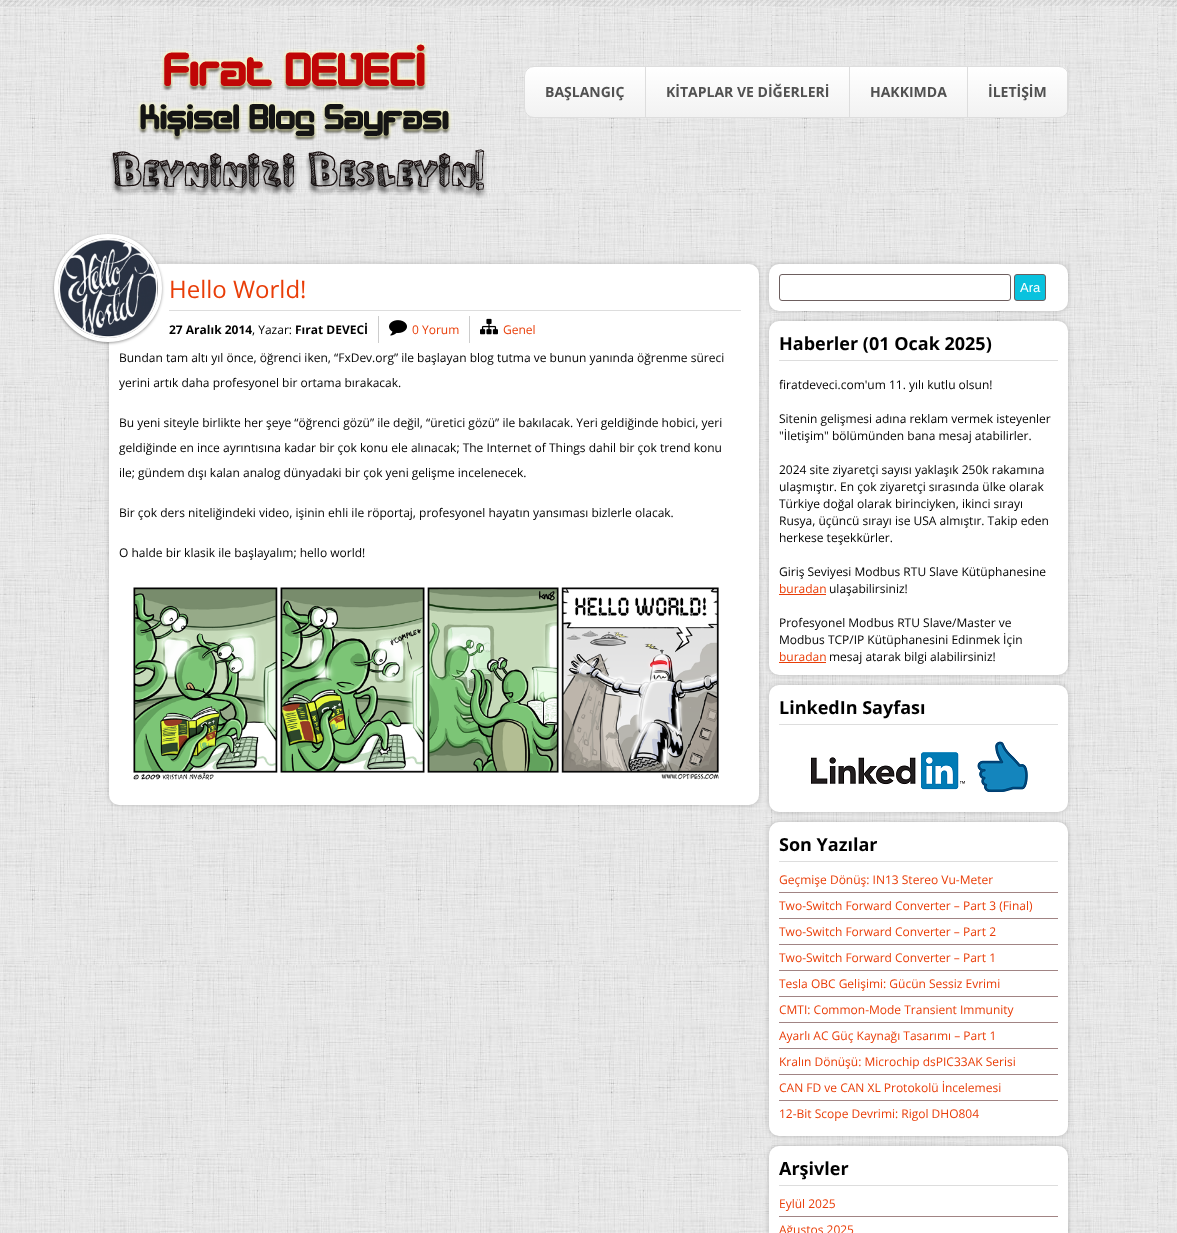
(async () => {
  const canvas = document.querySelector("canvas");
  canvas.width = 1177;
  canvas.height = 1233;
  const ctx = canvas.getContext("2d");
  ctx.miterLimit = 4;
  ctx.fontKerning = "normal";
  async function loadImage(src) {
    const img = new Image();
    img.src = src;
    await img.decode();
    return img;
  }
  let gradient;

  ctx.fillStyle = "#ffffff";
  ctx.fillRect(0, 0, 1177, 1233);
  ctx.drawImage(await loadImage("img/1.png"), 0, 0, 1177, 1233);
  ctx.drawImage(await loadImage("img/2.png"), 0, 0, 1177, 6);
  ctx.drawImage(await loadImage("img/3.png"), 109, 42, 378, 157);
  ctx.save();
  ctx.beginPath();
  ctx.roundRect(524, 66, 545, 52, 10);
  ctx.clip();
  gradient = ctx.createLinearGradient(797, 67, 797, 117);
  gradient.addColorStop(0, "#ffffff");
  gradient.addColorStop(1, "#f2f2f2");
  ctx.fillStyle = gradient;
  ctx.fillRect(524, 67, 545, 50);
  ctx.restore();
  ctx.beginPath();
  ctx.roundRect(524.5, 66.5, 544, 51, 9.5);
  ctx.strokeStyle = "#dddddd";
  ctx.stroke();
  for (const [x, y, w, h, color] of [
    [645, 66, 1, 51, "#dddddd"],
    [849, 66, 1, 51, "#dddddd"],
    [967, 66, 1, 51, "#dddddd"],
    [1067, 66, 1, 51, "#dddddd"],
  ]) {
    ctx.fillStyle = color;
    ctx.fillRect(x, y, w, h);
  }
  ctx.fillStyle = "rgba(0, 0, 0, 0.2)";
  ctx.filter = "blur(2.5px)";
  ctx.beginPath();
  ctx.roundRect(109, 264, 650, 541, 10);
  ctx.fill();
  ctx.filter = "none";
  ctx.fillStyle = "#ffffff";
  ctx.beginPath();
  ctx.roundRect(109, 264, 650, 541, 10);
  ctx.fill();
  ctx.fillStyle = "rgba(0, 0, 0, 0.4)";
  ctx.filter = "blur(1.5px)";
  ctx.beginPath();
  ctx.roundRect(54, 235, 108, 108, 54);
  ctx.fill();
  ctx.filter = "none";
  ctx.beginPath();
  ctx.arc(108, 288, 52, 0, Math.PI * 2);
  ctx.strokeStyle = "#ffffff";
  ctx.lineWidth = 4;
  ctx.stroke();
  ctx.drawImage(await loadImage("img/4.png"), 58, 238, 99, 100);
  for (const [x, y, w, h, color] of [
    [169, 310, 572, 1, "#dddddd"],
    [378, 316, 1, 27, "#cccccc"],
    [469, 316, 1, 27, "#cccccc"],
  ]) {
    ctx.fillStyle = color;
    ctx.fillRect(x, y, w, h);
  }
  ctx.drawImage(await loadImage("img/5.png"), 389, 320, 18, 16);
  ctx.drawImage(await loadImage("img/6.png"), 480, 318, 18, 17);
  ctx.drawImage(await loadImage("img/7.png"), 133, 587, 586, 193);
  ctx.fillStyle = "rgba(0, 0, 0, 0.2)";
  ctx.filter = "blur(2.5px)";
  ctx.beginPath();
  ctx.roundRect(769, 264, 299, 47, 10);
  ctx.fill();
  ctx.filter = "none";
  ctx.fillStyle = "#ffffff";
  ctx.beginPath();
  ctx.roundRect(769, 264, 299, 47, 10);
  ctx.fill();
  ctx.beginPath();
  ctx.roundRect(779.5, 274.5, 231, 26, 2.5);
  ctx.strokeStyle = "#6d5e5e";
  ctx.lineWidth = 1;
  ctx.stroke();
  ctx.fillStyle = "#09c2de";
  ctx.beginPath();
  ctx.roundRect(1014.5, 274.5, 31, 26, 2.5);
  ctx.fill();
  ctx.stroke();
  ctx.fillStyle = "rgba(0, 0, 0, 0.2)";
  ctx.filter = "blur(2.5px)";
  ctx.beginPath();
  ctx.roundRect(769, 321, 299, 354, 10);
  ctx.fill();
  ctx.filter = "none";
  ctx.fillStyle = "#ffffff";
  ctx.beginPath();
  ctx.roundRect(769, 321, 299, 354, 10);
  ctx.fill();
  for (const [x, y, w, h, color] of [
    [779, 360, 279, 1, "#dddddd"],
    [779, 594, 47, 1, "#e93d07"],
    [779, 662, 47, 1, "#e93d07"],
  ]) {
    ctx.fillStyle = color;
    ctx.fillRect(x, y, w, h);
  }
  ctx.fillStyle = "rgba(0, 0, 0, 0.2)";
  ctx.filter = "blur(2.5px)";
  ctx.beginPath();
  ctx.roundRect(769, 685, 299, 127, 10);
  ctx.fill();
  ctx.filter = "none";
  ctx.fillStyle = "#ffffff";
  ctx.beginPath();
  ctx.roundRect(769, 685, 299, 127, 10);
  ctx.fill();
  ctx.fillStyle = "#dddddd";
  ctx.fillRect(779, 724, 279, 1);
  ctx.drawImage(await loadImage("img/8.png"), 811, 741, 217, 52);
  ctx.fillStyle = "rgba(0, 0, 0, 0.2)";
  ctx.filter = "blur(2.5px)";
  ctx.beginPath();
  ctx.roundRect(769, 822, 299, 314, 10);
  ctx.fill();
  ctx.filter = "none";
  ctx.fillStyle = "#ffffff";
  ctx.beginPath();
  ctx.roundRect(769, 822, 299, 314, 10);
  ctx.fill();
  for (const [x, y, w, h, color] of [
    [779, 861, 279, 1, "#dddddd"],
    [779, 892, 279, 1, "#a18484"],
    [779, 918, 279, 1, "#a18484"],
    [779, 944, 279, 1, "#a18484"],
    [779, 970, 279, 1, "#a18484"],
    [779, 996, 279, 1, "#a18484"],
    [779, 1022, 279, 1, "#a18484"],
    [779, 1048, 279, 1, "#a18484"],
    [779, 1074, 279, 1, "#a18484"],
    [779, 1100, 279, 1, "#a18484"],
  ]) {
    ctx.fillStyle = color;
    ctx.fillRect(x, y, w, h);
  }
  ctx.fillStyle = "rgba(0, 0, 0, 0.2)";
  ctx.filter = "blur(2.5px)";
  ctx.beginPath();
  ctx.roundRect(769, 1146, 299, 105, 10);
  ctx.fill();
  ctx.filter = "none";
  ctx.fillStyle = "#ffffff";
  ctx.beginPath();
  ctx.roundRect(769, 1146, 299, 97, 10);
  ctx.fill();
  ctx.fillStyle = "#dddddd";
  ctx.fillRect(779, 1185, 279, 1);
  ctx.fillStyle = "#a18484";
  ctx.fillRect(779, 1216, 279, 1);
  ctx.font = "bold 14px Open Sans";
  ctx.fillStyle = "#515151";
  for (const [text, x, y] of [
    ["BAŞLANGIÇ", 545, 97],
    ["KİTAPLAR VE DİĞERLERİ", 666, 97],
    ["HAKKIMDA", 870, 97],
    ["İLETİŞİM", 988, 97],
  ]) {
    ctx.fillText(text, x, y);
  }
  ctx.font = "24px Open Sans";
  ctx.fillStyle = "#e93d07";
  ctx.fillText("Hello World!", 169, 298);
  ctx.font = "bold 12px Open Sans";
  ctx.fillStyle = "#000000";
  ctx.fillText("27 Aralık 2014", 169, 334);
  ctx.font = "12px Open Sans";
  ctx.fillText(", Yazar:", 252, 334);
  ctx.font = "bold 12px Open Sans";
  ctx.fillText("Fırat DEVECİ", 295, 334);
  ctx.font = "12px Open Sans";
  ctx.fillStyle = "#e93d07";
  ctx.fillText("0 Yorum", 412, 334);
  ctx.fillText("Genel", 503, 334);
  ctx.fillStyle = "#000000";
  for (const [text, x, y] of [
    ["Bundan tam altı yıl önce, öğrenci iken, “FxDev.org” ile başlayan blog tutma ve bunun yanında öğrenme süreci", 119, 362],
    ["yerini artık daha profesyonel bir ortama bırakacak.", 119, 387],
    ["Bu yeni siteyle birlikte her şeye “öğrenci gözü” ile değil, “üretici gözü” ile bakılacak. Yeri geldiğinde hobici, yeri", 119, 427],
    ["geldiğinde en ince ayrıntısına kadar bir çok konu ele alınacak; The Internet of Things dahil bir çok trend konu", 119, 452],
    ["ile; gündem dışı kalan analog dünyadaki bir çok yeni gelişme incelenecek.", 119, 477],
    ["Bir çok ders niteliğindeki video, işinin ehli ile röportaj, profesyonel hayatın yansıması bizlerle olacak.", 119, 517],
    ["O halde bir klasik ile başlayalım; hello world!", 119, 557],
  ]) {
    ctx.fillText(text, x, y);
  }
  ctx.font = "13px Liberation Sans";
  ctx.fillStyle = "#ffffff";
  ctx.fillText("Ara", 1020, 292);
  ctx.font = "bold 18px Open Sans";
  ctx.fillStyle = "#000000";
  ctx.fillText("Haberler (01 Ocak 2025)", 779, 350);
  ctx.font = "12px Open Sans";
  for (const [text, x, y] of [
    ["firatdeveci.com'um 11. yılı kutlu olsun!", 779, 389],
    ["Sitenin gelişmesi adına reklam vermek isteyenler", 779, 423],
    ["\"İletişim\" bölümünden bana mesaj atabilirler.", 779, 440],
    ["2024 site ziyaretçi sayısı yaklaşık 250k rakamına", 779, 474],
    ["ulaşmıştır. En çok ziyaretçi sırasında ülke olarak", 779, 491],
    ["Türkiye doğal olarak birinciyken, ikinci sırayı", 779, 508],
    ["Rusya, üçüncü sırayı ise USA almıştır. Takip eden", 779, 525],
    ["herkese teşekkürler.", 779, 542],
    ["Giriş Seviyesi Modbus RTU Slave Kütüphanesine", 779, 576],
  ]) {
    ctx.fillText(text, x, y);
  }
  ctx.fillStyle = "#e93d07";
  ctx.fillText("buradan", 779, 593);
  ctx.fillStyle = "#000000";
  for (const [text, x, y] of [
    ["ulaşabilirsiniz!", 829, 593],
    ["Profesyonel Modbus RTU Slave/Master ve", 779, 627],
    ["Modbus TCP/IP Kütüphanesini Edinmek İçin", 779, 644],
  ]) {
    ctx.fillText(text, x, y);
  }
  ctx.fillStyle = "#e93d07";
  ctx.fillText("buradan", 779, 661);
  ctx.fillStyle = "#000000";
  ctx.fillText("mesaj atarak bilgi alabilirsiniz!", 829, 661);
  ctx.font = "bold 18px Open Sans";
  ctx.fillText("LinkedIn Sayfası", 779, 714);
  ctx.fillText("Son Yazılar", 779, 851);
  ctx.font = "12px Open Sans";
  ctx.fillStyle = "#e93d07";
  for (const [text, x, y] of [
    ["Geçmişe Dönüş: IN13 Stereo Vu-Meter", 779, 884],
    ["Two-Switch Forward Converter – Part 3 (Final)", 779, 910],
    ["Two-Switch Forward Converter – Part 2", 779, 936],
    ["Two-Switch Forward Converter – Part 1", 779, 962],
    ["Tesla OBC Gelişimi: Gücün Sessiz Evrimi", 779, 988],
    ["CMTI: Common-Mode Transient Immunity", 779, 1014],
    ["Ayarlı AC Güç Kaynağı Tasarımı – Part 1", 779, 1040],
    ["Kralın Dönüşü: Microchip dsPIC33AK Serisi", 779, 1066],
    ["CAN FD ve CAN XL Protokolü İncelemesi", 779, 1092],
    ["12-Bit Scope Devrimi: Rigol DHO804", 779, 1118],
  ]) {
    ctx.fillText(text, x, y);
  }
  ctx.font = "bold 18px Open Sans";
  ctx.fillStyle = "#000000";
  ctx.fillText("Arşivler", 779, 1175);
  ctx.font = "12px Open Sans";
  ctx.fillStyle = "#e93d07";
  ctx.fillText("Eylül 2025", 779, 1208);
  ctx.fillText("Ağustos 2025", 779, 1234);
})();
